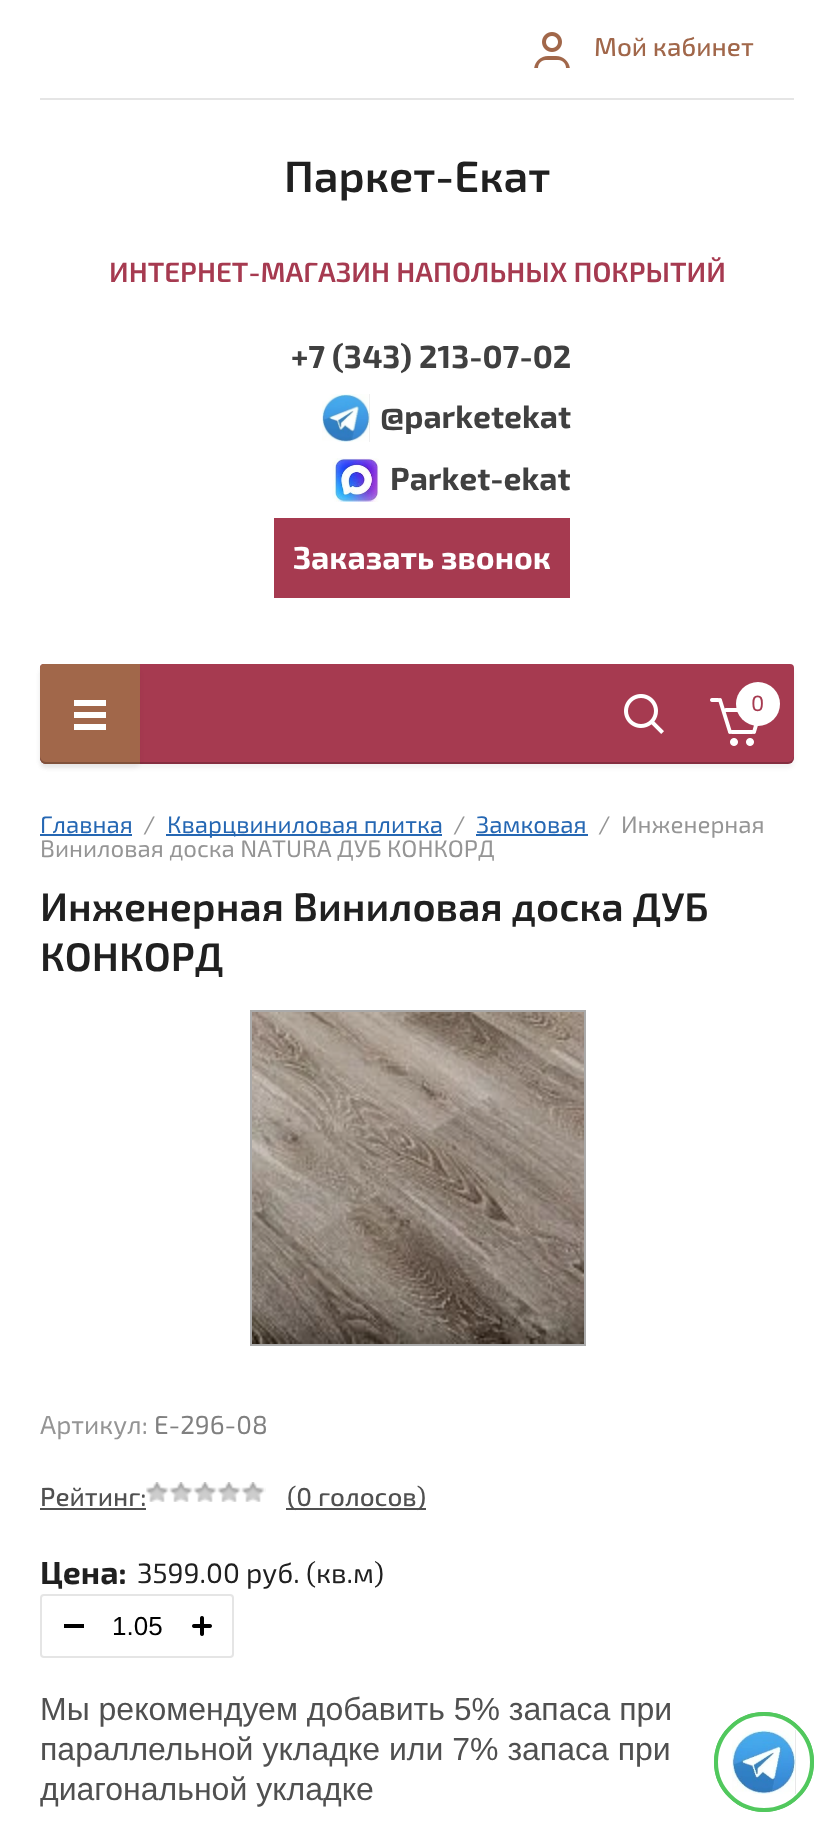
(async () => {
  const canvas = document.querySelector("canvas");
  canvas.width = 833;
  canvas.height = 1831;
  const ctx = canvas.getContext("2d");
  ctx.miterLimit = 4;
  ctx.fontKerning = "normal";
  async function loadImage(src) {
    const img = new Image();
    img.src = src;
    await img.decode();
    return img;
  }
  let path;

  ctx.fillStyle = "#ffffff";
  ctx.fillRect(0, 0, 833, 1831);
  ctx.fillStyle = "#e5e5e5";
  ctx.fillRect(40, 98, 754, 2);
  ctx.drawImage(await loadImage("img/1.png"), 534, 32, 36, 36);
  ctx.drawImage(await loadImage("img/2.png"), 322, 394, 48, 48);
  ctx.drawImage(await loadImage("img/3.png"), 332, 458, 47, 44);
  ctx.fillStyle = "#a63a50";
  ctx.fillRect(274, 518, 296, 80);
  ctx.fillStyle = "rgba(0, 0, 0, 0.05)";
  ctx.filter = "blur(2px)";
  ctx.beginPath();
  ctx.roundRect(40, 668, 754, 100, 6);
  ctx.fill();
  ctx.filter = "none";
  ctx.fillStyle = "#a63a50";
  ctx.beginPath();
  ctx.roundRect(40, 664, 754, 100, [4, 4, 6, 6]);
  ctx.fill();
  ctx.fillStyle = "rgba(0, 0, 0, 0.2)";
  path = new Path2D("M40 756V758C40 761 43 764 46 764H788C791 764 794 761 794 758V756C794 759 791 762 788 762H46C43 762 40 759 40 756Z");
  ctx.fill(path);
  ctx.fillStyle = "rgba(0, 0, 0, 0.05)";
  ctx.filter = "blur(2px)";
  ctx.beginPath();
  ctx.roundRect(40, 668, 100, 100, 6);
  ctx.fill();
  ctx.filter = "none";
  ctx.fillStyle = "#a1674a";
  ctx.beginPath();
  ctx.roundRect(40, 664, 100, 100, [4, 0, 0, 6]);
  ctx.fill();
  ctx.drawImage(await loadImage("img/4.png"), 74, 700, 32, 30);
  ctx.fillStyle = "rgba(0, 0, 0, 0.2)";
  path = new Path2D("M40 756V758C40 761 43 764 46 764H140V762H46C43 762 40 759 40 756Z");
  ctx.fill(path);
  ctx.drawImage(await loadImage("img/5.png"), 624, 694, 40, 40);
  ctx.drawImage(await loadImage("img/6.png"), 710, 698, 48, 48);
  ctx.fillStyle = "#ffffff";
  ctx.beginPath();
  ctx.arc(758, 704, 22, 0, Math.PI * 2);
  ctx.fill();
  for (const [x, y, w, h, color] of [
    [40, 834, 92, 2, "#2567b3"],
    [166, 834, 276, 2, "#2567b3"],
    [476, 834, 112, 2, "#2567b3"],
  ]) {
    ctx.fillStyle = color;
    ctx.fillRect(x, y, w, h);
  }
  ctx.strokeStyle = "#aaaaaa";
  ctx.lineWidth = 2;
  ctx.strokeRect(251, 1011, 334, 334);
  ctx.drawImage(await loadImage("img/7.png"), 252, 1012, 332, 332);
  ctx.fillStyle = "#505050";
  ctx.fillRect(40, 1508, 106, 2);
  ctx.drawImage(await loadImage("img/8.png"), 146, 1482, 120, 20);
  ctx.fillRect(286, 1508, 140, 2);
  ctx.beginPath();
  ctx.roundRect(41, 1595, 192, 62, 3);
  ctx.strokeStyle = "#e5e5e5";
  ctx.stroke();
  ctx.fillStyle = "#000000";
  ctx.fillRect(64, 1624, 20, 4);
  ctx.drawImage(await loadImage("img/9.png"), 192, 1616, 20, 20);
  ctx.beginPath();
  ctx.arc(764, 1762, 48, 0, Math.PI * 2);
  ctx.strokeStyle = "#51c85d";
  ctx.lineWidth = 4;
  ctx.stroke();
  ctx.fillStyle = "#ffffff";
  ctx.beginPath();
  ctx.arc(764, 1762, 48, 0, Math.PI * 2);
  ctx.fill();
  ctx.stroke();
  ctx.drawImage(await loadImage("img/10.png"), 732, 1730, 64, 64);
  ctx.font = "500 26px 'Exo 2'";
  ctx.fillStyle = "#a1674a";
  ctx.fillText("Мой кабинет", 594, 56);
  ctx.font = "600 44px 'Exo 2'";
  ctx.fillStyle = "#202020";
  ctx.fillText("Паркет-Екат", 284, 192);
  ctx.font = "600 28px 'Exo 2'";
  ctx.fillStyle = "#a63a50";
  ctx.fillText("ИНТЕРНЕТ-МАГАЗИН НАПОЛЬНЫХ ПОКРЫТИЙ", 109, 282);
  ctx.font = "bold 32px 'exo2'";
  ctx.fillStyle = "#404040";
  for (const [text, x, y] of [
    ["+7 (343) 213-07-02", 291, 368],
    ["@parketekat", 380, 428],
    ["Parket-ekat", 390, 490],
  ]) {
    ctx.fillText(text, x, y);
  }
  ctx.fillStyle = "#ffffff";
  ctx.fillText("Заказать звонок", 293, 569);
  ctx.font = "22px 'exo2'";
  ctx.fillStyle = "#a63a50";
  ctx.fillText("0", 751, 711);
  ctx.font = "24px 'exo2'";
  ctx.fillStyle = "#2567b3";
  ctx.fillText("Главная", 40, 833);
  ctx.fillStyle = "#959595";
  ctx.fillText("/", 143, 833);
  ctx.fillStyle = "#2567b3";
  ctx.fillText("Кварцвиниловая плитка", 167, 833);
  ctx.fillStyle = "#959595";
  ctx.fillText("/", 453, 833);
  ctx.fillStyle = "#2567b3";
  ctx.fillText("Замковая", 476, 833);
  ctx.fillStyle = "#959595";
  for (const [text, x, y] of [
    ["/", 598, 833],
    ["Инженерная", 621, 833],
    ["Виниловая доска NATURA ДУБ КОНКОРД", 40, 857],
  ]) {
    ctx.fillText(text, x, y);
  }
  ctx.font = "600 40px 'Exo 2'";
  ctx.fillStyle = "#202020";
  ctx.fillText("Инженерная Виниловая доска ДУБ", 40, 921);
  ctx.fillText("КОНКОРД", 40, 971);
  ctx.font = "26px 'exo2'";
  ctx.fillStyle = "#959595";
  ctx.fillText("Артикул:", 40, 1434);
  ctx.fillStyle = "#808080";
  ctx.fillText("E-296-08", 154, 1434);
  ctx.font = "500 26px 'Exo 2'";
  ctx.fillStyle = "#505050";
  ctx.fillText("Рейтинг:", 40, 1506);
  ctx.fillText("(0 голосов)", 287, 1506);
  ctx.font = "bold 32px 'exo2'";
  ctx.fillStyle = "#202020";
  ctx.fillText("Цена:", 40, 1584);
  ctx.font = "28px 'exo2'";
  ctx.fillText("3599.00 руб. (кв.м)", 137, 1583);
  ctx.font = "26px Liberation Sans";
  ctx.fillStyle = "#000000";
  ctx.fillText("1.05", 112, 1635);
  ctx.font = "32px Liberation Sans";
  ctx.fillStyle = "#505050";
  for (const [text, x, y] of [
    ["Мы рекомендуем добавить 5% запаса при", 40, 1720],
    ["параллельной укладке или 7% запаса при", 40, 1760],
    ["диагональной укладке", 40, 1800],
  ]) {
    ctx.fillText(text, x, y);
  }
})();
